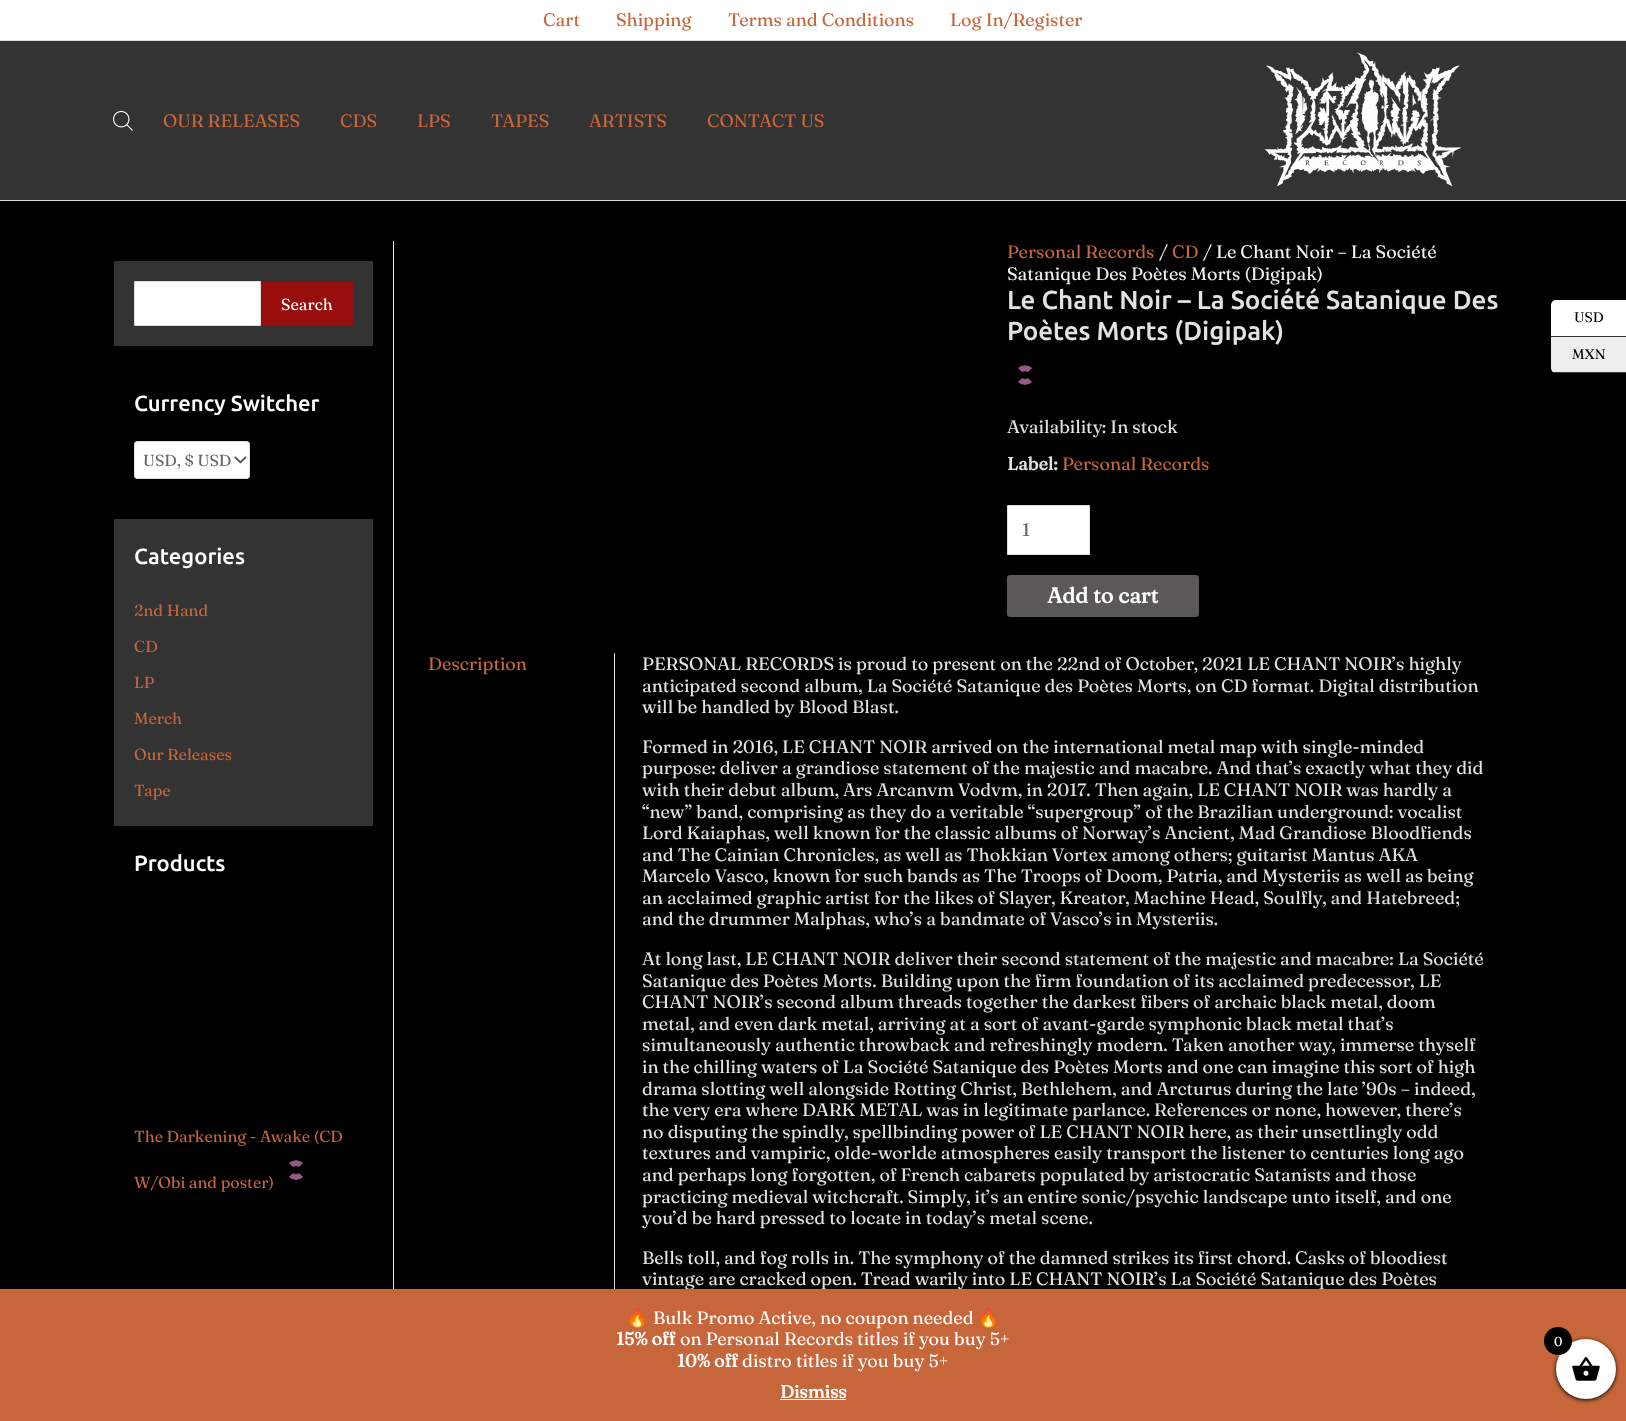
(async () => {
  const canvas = document.querySelector("canvas");
  canvas.width = 1626;
  canvas.height = 1421;
  const ctx = canvas.getContext("2d");
  ctx.miterLimit = 4;
  ctx.fontKerning = "normal";
  async function loadImage(src) {
    const img = new Image();
    img.src = src;
    await img.decode();
    return img;
  }
  let path;

  ctx.fillStyle = "#000000";
  ctx.fillRect(0, 0, 1626, 1421);
  for (const [x, y, w, h, color] of [
    [0, 0, 1626, 40, "#ffffff"],
    [0, 40, 1626, 1, "#dddddd"],
    [0, 41, 1626, 159, "#333333"],
    [0, 200, 1626, 1, "#dddddd"],
  ]) {
    ctx.fillStyle = color;
    ctx.fillRect(x, y, w, h);
  }
  ctx.drawImage(await loadImage("img/1.png"), 113, 111, 20, 20);
  ctx.drawImage(await loadImage("img/2.png"), 1264, 52, 198, 135);
  ctx.fillStyle = "#333333";
  ctx.fillRect(114, 261, 259, 565);
  ctx.fillStyle = "#ffffff";
  ctx.beginPath();
  ctx.rect(134.5, 281.5, 126, 44);
  ctx.fill();
  ctx.strokeStyle = "#dddddd";
  ctx.stroke();
  ctx.fillStyle = "#980d0d";
  ctx.beginPath();
  ctx.roundRect(261, 281, 92, 45, 2);
  ctx.fill();
  ctx.fillStyle = "#000000";
  ctx.fillRect(114, 346, 259, 173);
  ctx.fillStyle = "#ffffff";
  ctx.beginPath();
  ctx.roundRect(134, 441, 116, 38, 4);
  ctx.fill();
  ctx.drawImage(await loadImage("img/3.png"), 234, 456, 13, 8);
  ctx.beginPath();
  ctx.roundRect(134.5, 441.5, 115, 37, 3.5);
  ctx.stroke();
  path = new Path2D("M291 1165C293.5 1162.5 298.5 1162.5 301 1165M301 1175C298.5 1177.5 293.5 1177.5 291 1175");
  ctx.strokeStyle = "#96588a";
  ctx.lineWidth = 6;
  ctx.stroke(path);
  ctx.fillStyle = "#eeeeee";
  ctx.fillRect(393, 241, 1, 1048);
  path = new Path2D("M1020 370C1022.5 367.5 1027.5 367.5 1030 370M1030 380C1027.5 382.5 1022.5 382.5 1020 380");
  ctx.stroke(path);
  ctx.fillStyle = "#ffffff";
  ctx.beginPath();
  ctx.rect(1007.5, 505.5, 82, 49);
  ctx.fill();
  ctx.strokeStyle = "#dddddd";
  ctx.lineWidth = 1;
  ctx.stroke();
  ctx.fillStyle = "#5b5858";
  ctx.beginPath();
  ctx.roundRect(1007, 575, 192, 42, 3);
  ctx.fill();
  ctx.fillStyle = "#dddddd";
  ctx.fillRect(614, 653, 1, 636);
  ctx.fillStyle = "#ffffff";
  ctx.beginPath();
  ctx.roundRect(1551, 300, 75, 37, [5, 0, 0, 0]);
  ctx.fill();
  ctx.fillStyle = "#333333";
  ctx.fillRect(1551, 336, 75, 1);
  ctx.fillStyle = "#eeeeee";
  ctx.beginPath();
  ctx.roundRect(1551, 337, 75, 36, [0, 0, 0, 5]);
  ctx.fill();
  ctx.fillStyle = "#333333";
  ctx.fillRect(1554, 372, 72, 1);
  ctx.fillStyle = "rgba(0, 0, 0, 0.2)";
  ctx.filter = "blur(9px)";
  ctx.beginPath();
  ctx.rect(0, 1290, 1626, 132);
  ctx.fill();
  ctx.filter = "none";
  ctx.font = "18px Fraunces";
  ctx.fillStyle = "#c6663a";
  for (const [text, x, y] of [
    ["Cart", 543, 26],
    ["Shipping", 616, 26],
    ["Terms and Conditions", 728, 26],
    ["Log In/Register", 950, 26],
    ["OUR RELEASES", 163, 127],
    ["CDS", 340, 127],
    ["LPS", 417, 127],
    ["TAPES", 491, 127],
    ["ARTISTS", 589, 127],
    ["CONTACT US", 707, 127],
  ]) {
    ctx.fillText(text, x, y);
  }
  ctx.font = "16px Fraunces";
  ctx.fillStyle = "#ffffff";
  ctx.fillText("Search", 281, 310);
  ctx.font = "500 22px Ubuntu";
  ctx.fillText("Currency Switcher", 134, 411);
  ctx.font = "16px Fraunces";
  ctx.fillStyle = "#666666";
  ctx.fillText("USD, $ USD", 143, 466);
  ctx.font = "500 22px Ubuntu";
  ctx.fillStyle = "#ffffff";
  ctx.fillText("Categories", 134, 564);
  ctx.font = "16px Fraunces";
  ctx.fillStyle = "#c6663a";
  for (const [text, x, y] of [
    ["2nd Hand", 134, 616],
    ["CD", 134, 652],
    ["LP", 134, 688],
    ["Merch", 134, 724],
    ["Our Releases", 134, 760],
    ["Tape", 134, 796],
  ]) {
    ctx.fillText(text, x, y);
  }
  ctx.font = "500 22px Ubuntu";
  ctx.fillStyle = "#ffffff";
  ctx.fillText("Products", 134, 871);
  ctx.font = "16px Fraunces";
  ctx.fillStyle = "#c6663a";
  ctx.fillText("The Darkening - Awake (CD", 134, 1142);
  ctx.fillText("W/Obi and poster)", 134, 1188);
  ctx.font = "18px Fraunces";
  ctx.fillText("Personal Records", 1007, 258);
  ctx.fillStyle = "#f0f0f0";
  ctx.fillText("/", 1159, 258);
  ctx.fillStyle = "#c6663a";
  ctx.fillText("CD", 1172, 258);
  ctx.fillStyle = "#f0f0f0";
  ctx.fillText("/ Le Chant Noir – La Société", 1203, 258);
  ctx.fillText("Satanique Des Poètes Morts (Digipak)", 1007, 280);
  ctx.font = "500 26px Ubuntu";
  ctx.fillStyle = "#e2e2e2";
  ctx.fillText("Le Chant Noir – La Société Satanique Des", 1007, 309);
  ctx.fillText("Poètes Morts (Digipak)", 1007, 340);
  ctx.font = "18px Fraunces";
  ctx.fillText("Availability: In stock", 1007, 433);
  ctx.font = "bold 18px Fraunces";
  ctx.fillText("Label:", 1007, 470);
  ctx.font = "18px Fraunces";
  ctx.fillStyle = "#c6663a";
  ctx.fillText("Personal Records", 1062, 470);
  ctx.fillStyle = "#666666";
  ctx.fillText("1", 1022, 536);
  ctx.font = "bold 21.5px Fraunces";
  ctx.fillStyle = "#ffffff";
  ctx.fillText("Add to cart", 1047, 603);
  ctx.font = "18px Fraunces";
  ctx.fillStyle = "#c6663a";
  ctx.fillText("Description", 428, 670);
  ctx.fillStyle = "#e2e2e2";
  for (const [text, x, y] of [
    ["PERSONAL RECORDS is proud to present on the 22nd of October, 2021 LE CHANT NOIR’s highly", 642, 670],
    ["anticipated second album, La Société Satanique des Poètes Morts, on CD format. Digital distribution", 642, 692],
    ["will be handled by Blood Blast.", 642, 713],
    ["Formed in 2016, LE CHANT NOIR arrived on the international metal map with single-minded", 642, 753],
    ["purpose: deliver a grandiose statement of the majestic and macabre. And that’s exactly what they did", 642, 774],
    ["with their debut album, Ars Arcanvm Vodvm, in 2017. Then again, LE CHANT NOIR was hardly a", 642, 796],
    ["“new” band, comprising as they do a veritable “supergroup” of the Brazilian underground: vocalist", 642, 818],
    ["Lord Kaiaphas, well known for the classic albums of Norway’s Ancient, Mad Grandiose Bloodfiends", 642, 839],
    ["and The Cainian Chronicles, as well as Thokkian Vortex among others; guitarist Mantus AKA", 642, 861],
    ["Marcelo Vasco, known for such bands as The Troops of Doom, Patria, and Mysteriis as well as being", 642, 882],
    ["an acclaimed graphic artist for the likes of Slayer, Kreator, Machine Head, Soulfly, and Hatebreed;", 642, 904],
    ["and the drummer Malphas, who’s a bandmate of Vasco’s in Mysteriis.", 642, 925],
    ["At long last, LE CHANT NOIR deliver their second statement of the majestic and macabre: La Société", 642, 965],
    ["Satanique des Poètes Morts. Building upon the firm foundation of its acclaimed predecessor, LE", 642, 987],
    ["CHANT NOIR’s second album threads together the darkest fibers of archaic black metal, doom", 642, 1008],
    ["metal, and even dark metal, arriving at a sort of avant-garde symphonic black metal that’s", 642, 1030],
    ["simultaneously authentic throwback and refreshingly modern. Taken another way, immerse thyself", 642, 1051],
    ["in the chilling waters of La Société Satanique des Poètes Morts and one can imagine this sort of high", 642, 1073],
    ["drama slotting well alongside Rotting Christ, Bethlehem, and Arcturus during the late ’90s – indeed,", 642, 1095],
    ["the very era where DARK METAL was in legitimate parlance. References or none, however, there’s", 642, 1116],
    ["no disputing the spindly, spellbinding power of LE CHANT NOIR here, as their unsettlingly odd", 642, 1138],
    ["textures and vampiric, olde-worlde atmospheres easily transport the listener to centuries long ago", 642, 1159],
    ["and perhaps long forgotten, of French cabarets populated by aristocratic Satanists and those", 642, 1181],
    ["practicing medieval witchcraft. Simply, it’s an entire sonic/psychic landscape unto itself, and one", 642, 1203],
    ["you’d be hard pressed to locate in today’s metal scene.", 642, 1224],
    ["Bells toll, and fog rolls in. The symphony of the damned strikes its first chord. Casks of bloodiest", 642, 1264],
    ["vintage are cracked open. Tread warily into LE CHANT NOIR’s La Société Satanique des Poètes", 642, 1285],
  ]) {
    ctx.fillText(text, x, y);
  }
  ctx.font = "14px Fraunces";
  ctx.fillStyle = "#000000";
  ctx.fillText("USD", 1574, 322);
  ctx.fillText("MXN", 1572, 359);
  ctx.fillStyle = "#c6663a";
  ctx.fillRect(0, 1289, 1626, 132);
  ctx.font = "18px Noto Color Emoji";
  ctx.fillStyle = "#ffffff";
  ctx.fillText("🔥", 626, 1324);
  ctx.font = "18px Fraunces";
  ctx.fillText("Bulk Promo Active, no coupon needed", 653, 1324);
  ctx.font = "18px Noto Color Emoji";
  ctx.fillText("🔥", 977, 1324);
  ctx.font = "bold 18px Fraunces";
  ctx.fillText("15% off", 616, 1345);
  ctx.font = "18px Fraunces";
  ctx.fillText("on Personal Records titles if you buy 5+", 680, 1345);
  ctx.font = "bold 18px Fraunces";
  ctx.fillText("10% off", 677, 1367);
  ctx.font = "18px Fraunces";
  ctx.fillText("distro titles if you buy 5+", 742, 1367);
  ctx.font = "bold 18px Fraunces";
  ctx.fillText("Dismiss", 780, 1398);
  ctx.fillRect(780, 1399, 66, 1);
  ctx.fillStyle = "#000000";
  ctx.filter = "blur(2px)";
  ctx.beginPath();
  ctx.roundRect(1556, 1340, 60, 60, 30);
  ctx.fill();
  ctx.filter = "none";
  ctx.fillStyle = "#ffffff";
  ctx.beginPath();
  ctx.arc(1586, 1369, 30, 0, Math.PI * 2);
  ctx.fill();
  ctx.fillStyle = "#000000";
  ctx.beginPath();
  ctx.arc(1558, 1341, 14, 0, Math.PI * 2);
  ctx.fill();
  ctx.font = "13px Fraunces";
  ctx.fillStyle = "#ffffff";
  ctx.fillText("0", 1554, 1346);
  ctx.drawImage(await loadImage("img/4.png"), 1572, 1357, 28, 24);
})();
